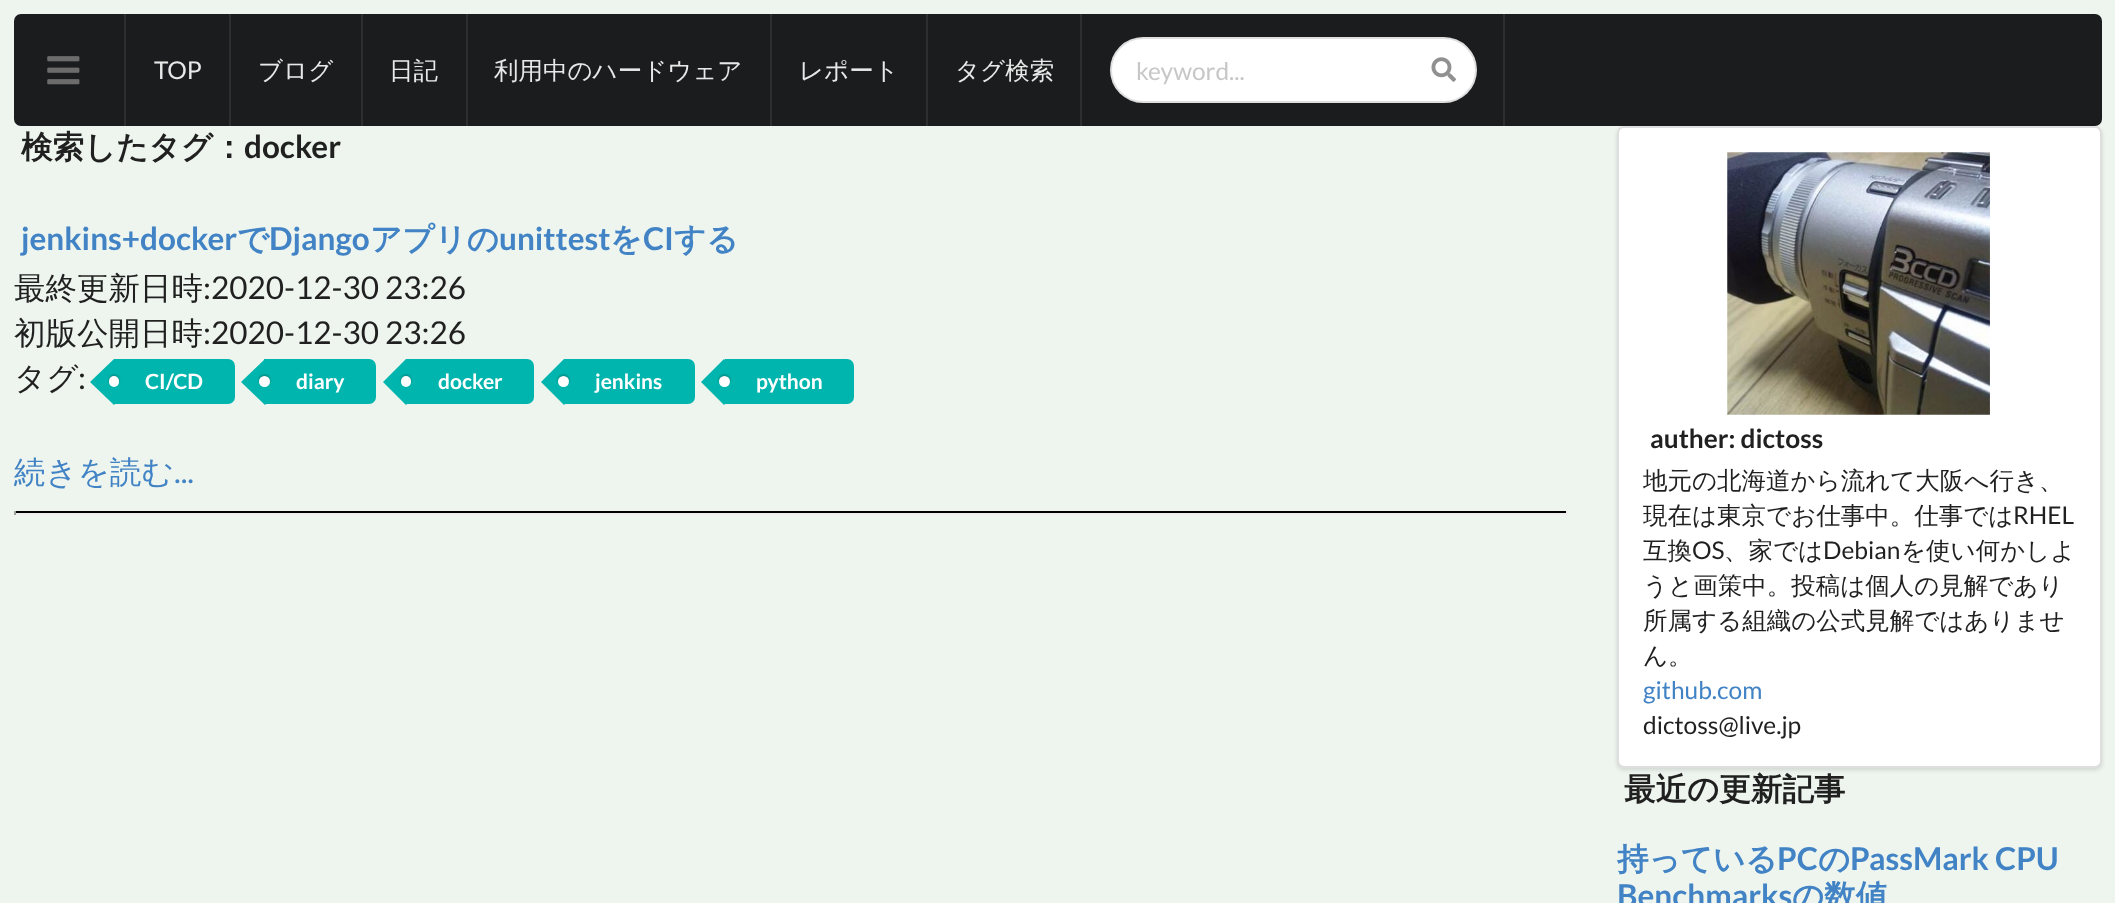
(async () => {
  const canvas = document.querySelector("canvas");
  canvas.width = 2115;
  canvas.height = 903;
  const ctx = canvas.getContext("2d");
  ctx.miterLimit = 4;
  ctx.fontKerning = "normal";
  async function loadImage(src) {
    const img = new Image();
    img.src = src;
    await img.decode();
    return img;
  }
  let path;

  ctx.fillStyle = "#eef5ef";
  ctx.fillRect(0, 0, 2115, 903);
  ctx.fillStyle = "#1b1c1d";
  ctx.beginPath();
  ctx.roundRect(14, 14, 2088, 112, 7);
  ctx.fill();
  ctx.drawImage(await loadImage("img/1.png"), 47, 56, 33, 29);
  for (const [x, y, w, h, color] of [
    [124, 14, 2, 112, "#2d2e2f"],
    [229, 14, 2, 112, "#2d2e2f"],
    [361, 14, 2, 112, "#2d2e2f"],
    [466, 14, 2, 112, "#2d2e2f"],
    [770, 14, 2, 112, "#2d2e2f"],
    [926, 14, 2, 112, "#2d2e2f"],
    [1080, 14, 2, 112, "#2d2e2f"],
  ]) {
    ctx.fillStyle = color;
    ctx.fillRect(x, y, w, h);
  }
  ctx.fillStyle = "#ffffff";
  ctx.beginPath();
  ctx.roundRect(1110, 37, 367, 66, 33);
  ctx.fill();
  ctx.beginPath();
  ctx.roundRect(1111, 38, 365, 64, 32);
  ctx.strokeStyle = "rgba(34, 36, 38, 0.15)";
  ctx.lineWidth = 2;
  ctx.stroke();
  ctx.drawImage(await loadImage("img/2.png"), 1431, 57, 25, 25);
  ctx.fillStyle = "#2d2e2f";
  ctx.fillRect(1503, 14, 2, 112);
  ctx.fillStyle = "#00b5ad";
  ctx.beginPath();
  ctx.roundRect(114, 359, 121, 45, [0, 7, 7, 0]);
  ctx.fill();
  path = new Path2D("M90 382L114 359L137 382L114 405Z");
  ctx.fill(path);
  ctx.fillStyle = "rgba(0, 0, 0, 0.3)";
  ctx.filter = "blur(1px)";
  ctx.beginPath();
  ctx.roundRect(109, 375, 10, 10, 5);
  ctx.fill();
  ctx.filter = "none";
  ctx.fillStyle = "#ffffff";
  ctx.beginPath();
  ctx.roundRect(109, 376, 10, 11, 5);
  ctx.fill();
  ctx.fillStyle = "#00b5ad";
  ctx.beginPath();
  ctx.roundRect(264, 359, 112, 45, [0, 7, 7, 0]);
  ctx.fill();
  path = new Path2D("M241 382L265 359L288 382L265 405Z");
  ctx.fill(path);
  ctx.fillStyle = "rgba(0, 0, 0, 0.3)";
  ctx.filter = "blur(1px)";
  ctx.beginPath();
  ctx.roundRect(259, 375, 11, 10, 5);
  ctx.fill();
  ctx.filter = "none";
  ctx.fillStyle = "#ffffff";
  ctx.beginPath();
  ctx.arc(264.5, 381.5, 5.5, 0, Math.PI * 2);
  ctx.fill();
  ctx.fillStyle = "#00b5ad";
  ctx.beginPath();
  ctx.roundRect(406, 359, 128, 45, [0, 7, 7, 0]);
  ctx.fill();
  path = new Path2D("M383 382L406 359L429 382L406 405Z");
  ctx.fill(path);
  ctx.fillStyle = "rgba(0, 0, 0, 0.3)";
  ctx.filter = "blur(1px)";
  ctx.beginPath();
  ctx.roundRect(401, 375, 10, 10, 5);
  ctx.fill();
  ctx.filter = "none";
  ctx.fillStyle = "#ffffff";
  ctx.beginPath();
  ctx.roundRect(401, 376, 10, 11, 5);
  ctx.fill();
  ctx.fillStyle = "#00b5ad";
  ctx.beginPath();
  ctx.roundRect(564, 359, 131, 45, [0, 7, 7, 0]);
  ctx.fill();
  path = new Path2D("M541 382L564 359L587 382L564 405Z");
  ctx.fill(path);
  ctx.fillStyle = "rgba(0, 0, 0, 0.3)";
  ctx.filter = "blur(1px)";
  ctx.beginPath();
  ctx.roundRect(558, 375, 11, 10, 5);
  ctx.fill();
  ctx.filter = "none";
  ctx.fillStyle = "#ffffff";
  ctx.beginPath();
  ctx.arc(563.5, 381.5, 5.5, 0, Math.PI * 2);
  ctx.fill();
  ctx.fillStyle = "#00b5ad";
  ctx.beginPath();
  ctx.roundRect(725, 359, 129, 45, [0, 7, 7, 0]);
  ctx.fill();
  path = new Path2D("M701 382L724 359L747 382L724 405Z");
  ctx.fill(path);
  ctx.fillStyle = "rgba(0, 0, 0, 0.3)";
  ctx.filter = "blur(1px)";
  ctx.beginPath();
  ctx.roundRect(719, 375, 11, 10, 5);
  ctx.fill();
  ctx.filter = "none";
  ctx.fillStyle = "#ffffff";
  ctx.beginPath();
  ctx.arc(724.5, 381.5, 5.5, 0, Math.PI * 2);
  ctx.fill();
  for (const [x, y, w, h, color] of [
    [14, 511, 1554, 2, "#000000"],
    [1566, 511, 2, 4, "#eeeeee"],
    [14, 513, 1554, 2, "#eeeeee"],
    [14, 511, 2, 4, "#9f9f9f"],
  ]) {
    ctx.fillStyle = color;
    ctx.fillRect(x, y, w, h);
  }
  ctx.fillStyle = "rgba(34, 36, 38, 0.15)";
  ctx.filter = "blur(2px)";
  ctx.beginPath();
  ctx.roundRect(1617, 128, 485, 642, 7);
  ctx.fill();
  ctx.filter = "none";
  ctx.fillStyle = "#ffffff";
  ctx.beginPath();
  ctx.roundRect(1617, 126, 485, 642, 7);
  ctx.fill();
  ctx.beginPath();
  ctx.roundRect(1618, 127, 483, 640, 6);
  ctx.stroke();
  ctx.drawImage(await loadImage("img/3.png"), 1727, 152, 263, 263);
  ctx.font = "24.5px Lato";
  ctx.fillStyle = "#e8e8e8";
  ctx.fillText("TOP", 154, 79);
  ctx.font = "500 24.5px WenQuanYi Zen Hei";
  for (const [text, x, y] of [
    ["ブログ", 258, 79],
    ["日記", 389, 79],
    ["利用中のハードウェア", 494, 79],
    ["レポート", 799, 79],
    ["タグ検索", 955, 79],
  ]) {
    ctx.fillText(text, x, y);
  }
  ctx.font = "24.5px Lato";
  ctx.fillStyle = "#c7c7c7";
  ctx.fillText("keyword...", 1136, 80);
  ctx.font = "bold 31.5px WenQuanYi Zen Hei";
  ctx.fillStyle = "#1f201f";
  ctx.fillText("検索したタグ：", 21, 158);
  ctx.font = "bold 31.5px Lato";
  ctx.fillText("docker", 244, 158);
  ctx.fillStyle = "#4183c4";
  ctx.fillText("jenkins+docker", 21, 250);
  ctx.font = "bold 31.5px WenQuanYi Zen Hei";
  ctx.fillText("で", 237, 250);
  ctx.font = "bold 31.5px Lato";
  ctx.fillText("Django", 269, 250);
  ctx.font = "bold 31.5px WenQuanYi Zen Hei";
  ctx.fillText("アプリの", 370, 250);
  ctx.font = "bold 31.5px Lato";
  ctx.fillText("unittest", 499, 250);
  ctx.font = "bold 31.5px WenQuanYi Zen Hei";
  ctx.fillText("を", 610, 250);
  ctx.font = "bold 31.5px Lato";
  ctx.fillText("CI", 643, 250);
  ctx.font = "bold 31.5px WenQuanYi Zen Hei";
  ctx.fillText("する", 674, 250);
  ctx.font = "500 31.5px WenQuanYi Zen Hei";
  ctx.fillStyle = "#1f201f";
  ctx.fillText("最終更新日時", 14, 299);
  ctx.font = "31.5px Lato";
  ctx.fillText(":2020-12-30 23:26", 203, 299);
  ctx.font = "500 31.5px WenQuanYi Zen Hei";
  ctx.fillText("初版公開日時", 14, 344);
  ctx.font = "31.5px Lato";
  ctx.fillText(":2020-12-30 23:26", 203, 344);
  ctx.font = "500 31.5px WenQuanYi Zen Hei";
  ctx.fillText("タグ", 14, 389);
  ctx.font = "31.5px Lato";
  ctx.fillText(":", 78, 389);
  ctx.font = "bold 21px Lato";
  ctx.fillStyle = "#ffffff";
  for (const [text, x, y] of [
    ["CI/CD", 145, 389],
    ["diary", 296, 389],
    ["docker", 438, 389],
    ["jenkins", 595, 389],
    ["python", 756, 389],
  ]) {
    ctx.fillText(text, x, y);
  }
  ctx.font = "500 31.5px WenQuanYi Zen Hei";
  ctx.fillStyle = "#4183c4";
  ctx.fillText("続きを読む", 14, 483);
  ctx.font = "31.5px Lato";
  ctx.fillText("...", 174, 483);
  ctx.font = "bold 26.25px Lato";
  ctx.fillStyle = "#1f201f";
  ctx.fillText("auther: dictoss", 1650, 448);
  ctx.font = "500 24.5px WenQuanYi Zen Hei";
  ctx.fillText("地元の北海道から流れて大阪へ行き、", 1643, 489);
  ctx.fillText("現在は東京でお仕事中。仕事では", 1643, 524);
  ctx.font = "24.5px Lato";
  ctx.fillText("RHEL", 2013, 524);
  ctx.font = "500 24.5px WenQuanYi Zen Hei";
  ctx.fillText("互換", 1643, 559);
  ctx.font = "24.5px Lato";
  ctx.fillText("OS", 1692, 559);
  ctx.font = "500 24.5px WenQuanYi Zen Hei";
  ctx.fillText("、家では", 1724, 559);
  ctx.font = "24.5px Lato";
  ctx.fillText("Debian", 1823, 559);
  ctx.font = "500 24.5px WenQuanYi Zen Hei";
  for (const [text, x, y] of [
    ["を使い何かしよ", 1901, 559],
    ["うと画策中。投稿は個人の見解であり", 1643, 594],
    ["所属する組織の公式見解ではありませ", 1643, 629],
    ["ん。", 1643, 664],
  ]) {
    ctx.fillText(text, x, y);
  }
  ctx.font = "24.5px Lato";
  ctx.fillStyle = "#4183c4";
  ctx.fillText("github.com", 1643, 699);
  ctx.fillStyle = "#1f201f";
  ctx.fillText("dictoss@live.jp", 1643, 734);
  ctx.font = "bold 31.5px WenQuanYi Zen Hei";
  ctx.fillText("最近の更新記事", 1624, 800);
  ctx.fillStyle = "#4183c4";
  ctx.fillText("持っている", 1617, 870);
  ctx.font = "bold 31.5px Lato";
  ctx.fillText("PC", 1777, 870);
  ctx.font = "bold 31.5px WenQuanYi Zen Hei";
  ctx.fillText("の", 1818, 870);
  ctx.font = "bold 31.5px Lato";
  ctx.fillText("PassMark CPU", 1850, 870);
  ctx.fillText("Benchmarks", 1617, 907);
  ctx.font = "bold 31.5px WenQuanYi Zen Hei";
  ctx.fillText("の数値", 1792, 907);
})();
